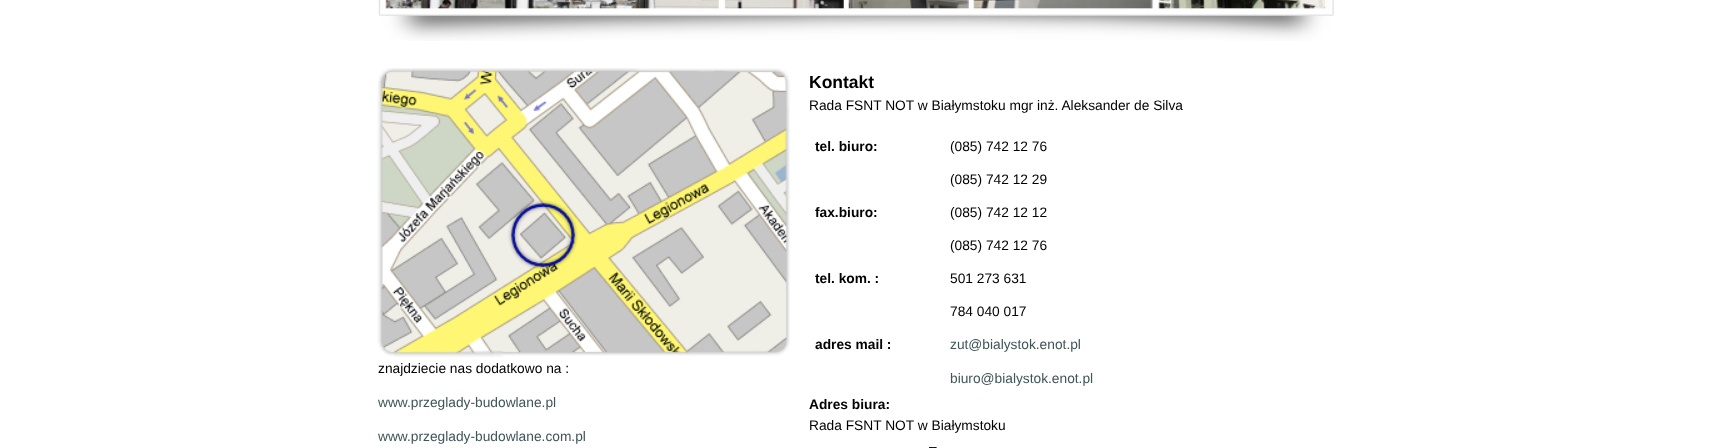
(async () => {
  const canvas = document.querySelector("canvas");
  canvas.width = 1711;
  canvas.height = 448;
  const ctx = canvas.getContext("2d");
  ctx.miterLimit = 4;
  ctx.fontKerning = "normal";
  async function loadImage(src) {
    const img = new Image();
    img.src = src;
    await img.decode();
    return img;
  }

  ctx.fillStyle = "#ffffff";
  ctx.fillRect(0, 0, 1711, 448);
  ctx.drawImage(await loadImage("img/1.png"), 378, 0, 956, 41);
  ctx.drawImage(await loadImage("img/2.png"), 377, 68, 413, 289);
  ctx.font = "13.75px Liberation Sans";
  ctx.fillStyle = "#000000";
  ctx.fillText("znajdziecie nas dodatkowo na :", 378, 373);
  ctx.fillStyle = "#415458";
  ctx.fillText("www.przeglady-budowlane.pl", 378, 407);
  ctx.fillText("www.przeglady-budowlane.com.pl", 378, 441);
  ctx.font = "bold 17.5px Liberation Sans";
  ctx.fillStyle = "#000000";
  ctx.fillText("Kontakt", 809, 88);
  ctx.font = "13.75px Liberation Sans";
  ctx.fillText("Rada FSNT NOT w Białymstoku mgr inż. Aleksander de Silva", 809, 110);
  ctx.font = "bold 13.75px Liberation Sans";
  ctx.fillText("tel. biuro:", 815, 151);
  ctx.font = "13.75px Liberation Sans";
  ctx.fillText("(085) 742 12 76", 950, 151);
  ctx.fillText("(085) 742 12 29", 950, 184);
  ctx.font = "bold 13.75px Liberation Sans";
  ctx.fillText("fax.biuro:", 815, 217);
  ctx.font = "13.75px Liberation Sans";
  ctx.fillText("(085) 742 12 12", 950, 217);
  ctx.fillText("(085) 742 12 76", 950, 250);
  ctx.font = "bold 13.75px Liberation Sans";
  ctx.fillText("tel. kom. :", 815, 283);
  ctx.font = "13.75px Liberation Sans";
  ctx.fillText("501 273 631", 950, 283);
  ctx.fillText("784 040 017", 950, 316);
  ctx.font = "bold 13.75px Liberation Sans";
  ctx.fillText("adres mail :", 815, 349);
  ctx.font = "13.75px Liberation Sans";
  ctx.fillStyle = "#415458";
  ctx.fillText("zut@bialystok.enot.pl", 950, 349);
  ctx.fillText("biuro@bialystok.enot.pl", 950, 383);
  ctx.font = "bold 13.75px Liberation Sans";
  ctx.fillStyle = "#000000";
  ctx.fillText("Adres biura:", 809, 409);
  ctx.font = "13.75px Liberation Sans";
  ctx.fillText("Rada FSNT NOT w Białymstoku", 809, 430);
  ctx.fillText("–", 929, 451);
})();
